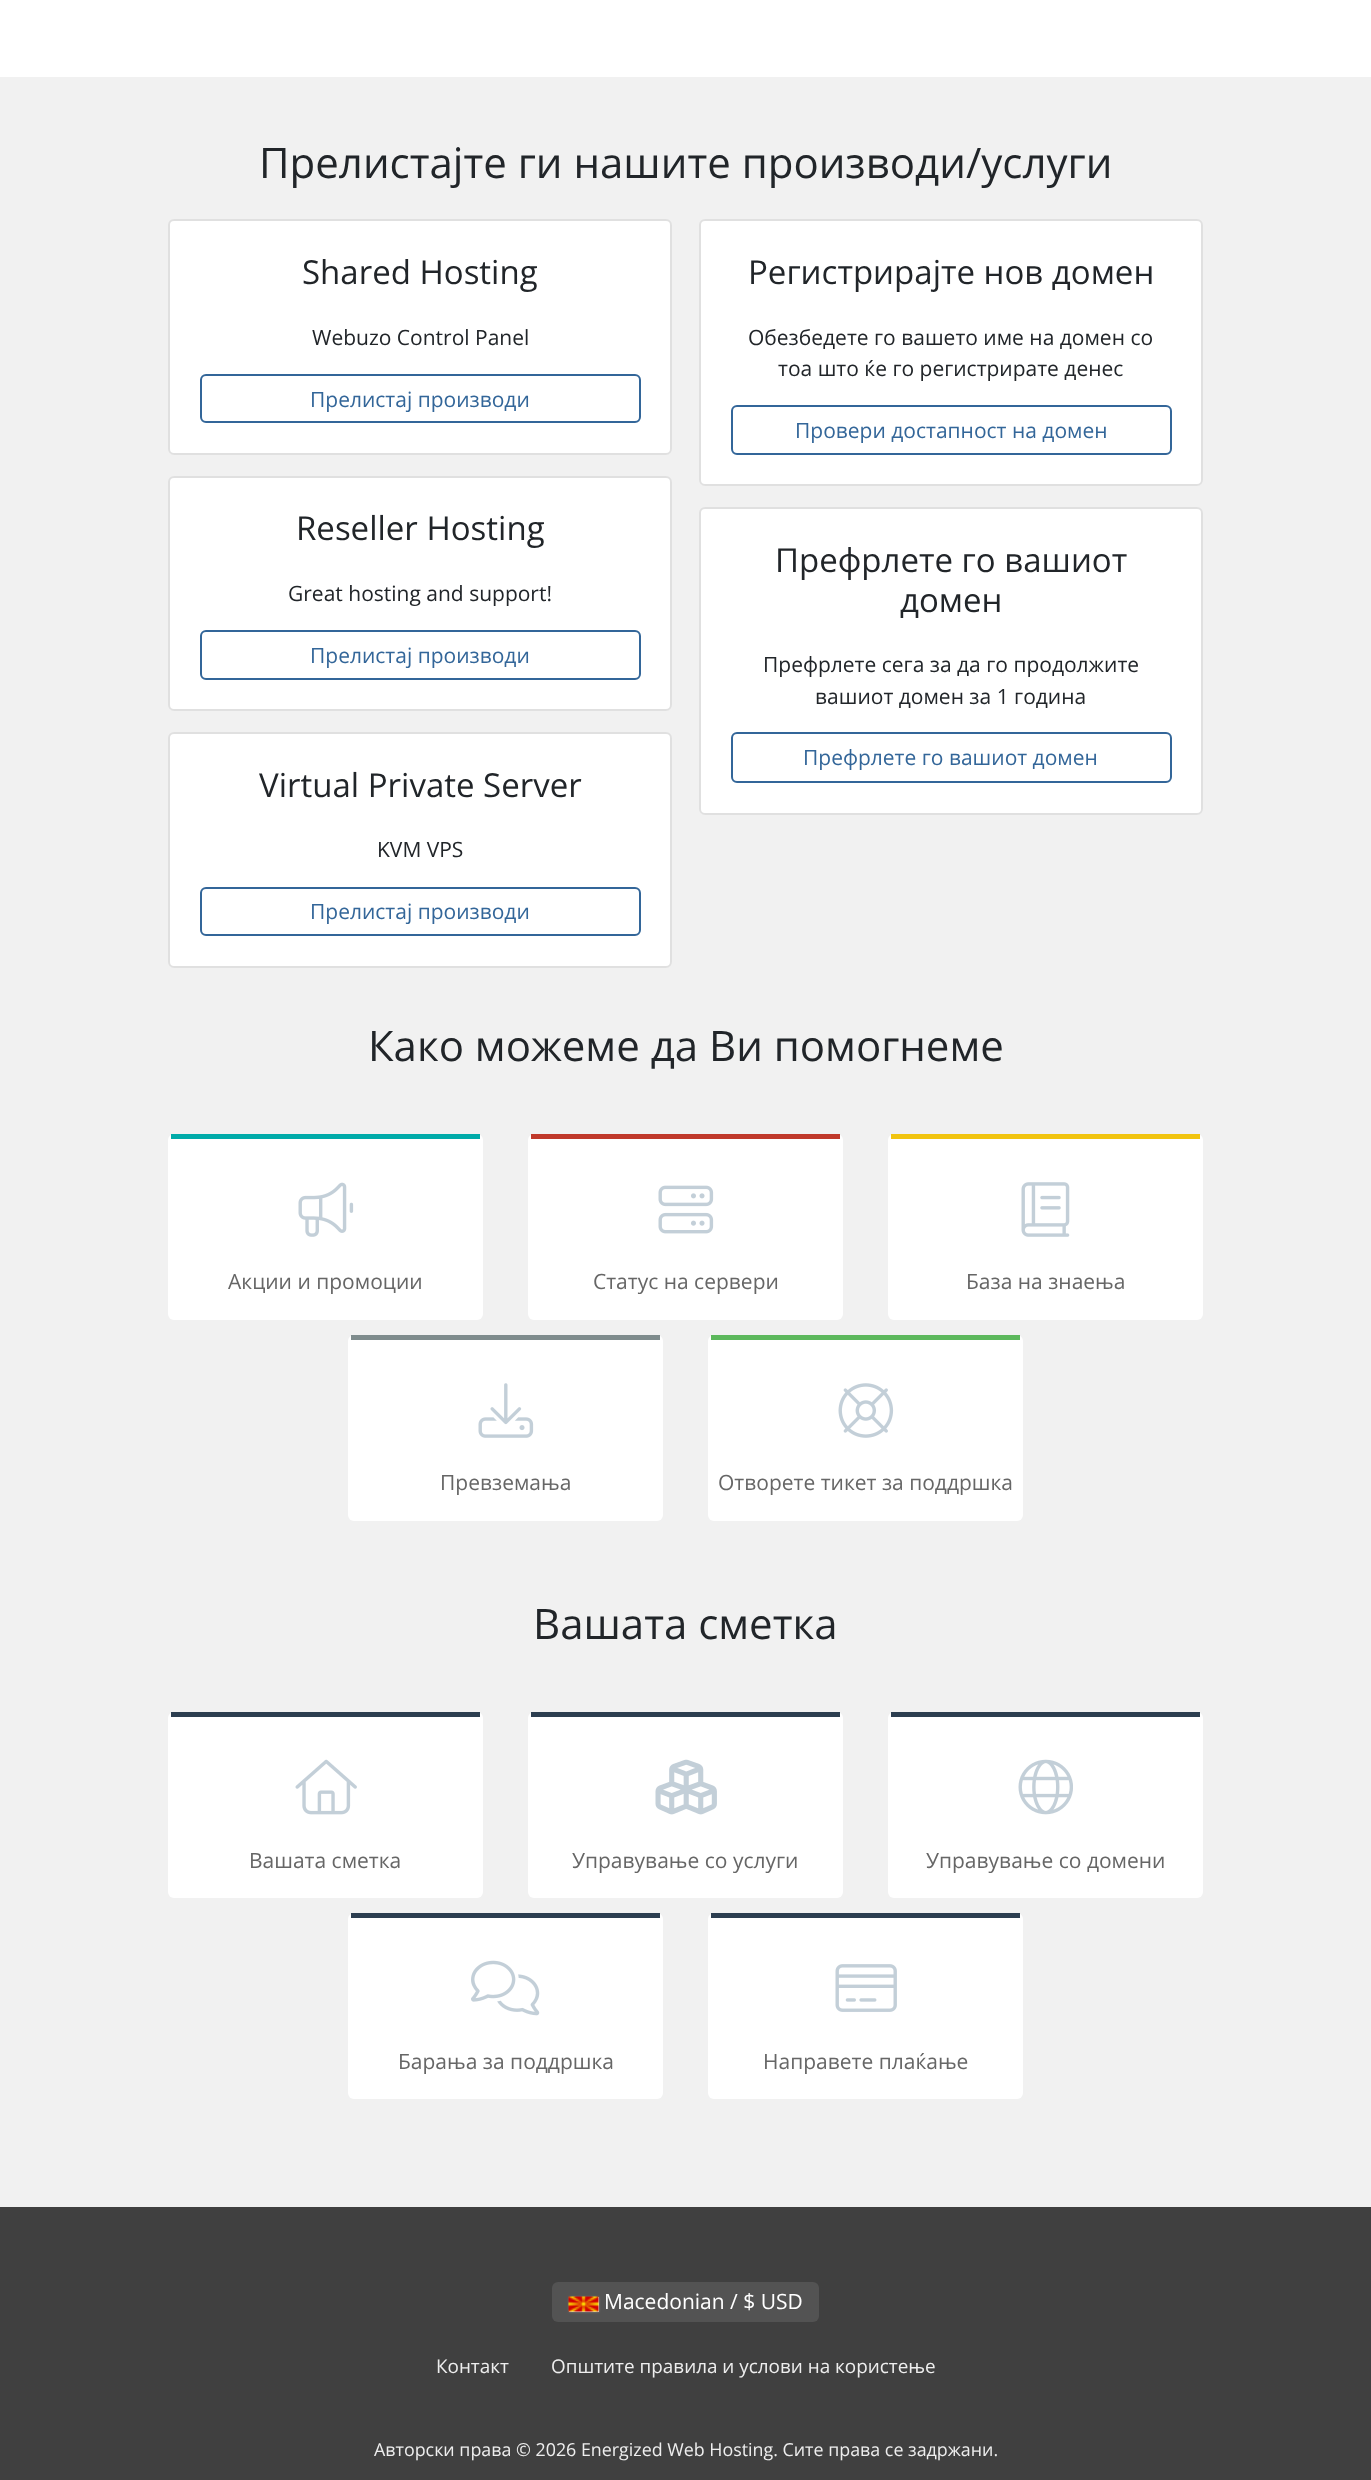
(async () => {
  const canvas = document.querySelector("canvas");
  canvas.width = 1371;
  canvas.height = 2480;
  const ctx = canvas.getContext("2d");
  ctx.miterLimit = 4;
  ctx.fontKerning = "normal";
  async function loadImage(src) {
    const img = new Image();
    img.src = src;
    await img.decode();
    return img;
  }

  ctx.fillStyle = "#f1f1f1";
  ctx.fillRect(0, 0, 1371, 2480);
  ctx.fillStyle = "#ffffff";
  ctx.fillRect(0, 0, 1371, 77);
  ctx.beginPath();
  ctx.roundRect(168, 219, 504, 236, 6);
  ctx.fill();
  ctx.beginPath();
  ctx.roundRect(169, 220, 502, 234, 5);
  ctx.strokeStyle = "rgba(0, 0, 0, 0.12)";
  ctx.lineWidth = 2;
  ctx.stroke();
  ctx.beginPath();
  ctx.roundRect(201, 375, 439, 47, 5);
  ctx.strokeStyle = "#336699";
  ctx.stroke();
  ctx.beginPath();
  ctx.roundRect(699, 219, 504, 267, 6);
  ctx.fill();
  ctx.beginPath();
  ctx.roundRect(700, 220, 502, 265, 5);
  ctx.strokeStyle = "rgba(0, 0, 0, 0.12)";
  ctx.stroke();
  ctx.beginPath();
  ctx.roundRect(732, 406, 439, 48, 5);
  ctx.strokeStyle = "#336699";
  ctx.stroke();
  ctx.beginPath();
  ctx.roundRect(168, 476, 504, 235, 6);
  ctx.fill();
  ctx.beginPath();
  ctx.roundRect(169, 477, 502, 233, 5);
  ctx.strokeStyle = "rgba(0, 0, 0, 0.12)";
  ctx.stroke();
  ctx.beginPath();
  ctx.roundRect(201, 631, 439, 48, 5);
  ctx.strokeStyle = "#336699";
  ctx.stroke();
  ctx.beginPath();
  ctx.roundRect(699, 507, 504, 308, 6);
  ctx.fill();
  ctx.beginPath();
  ctx.roundRect(700, 508, 502, 306, 5);
  ctx.strokeStyle = "rgba(0, 0, 0, 0.12)";
  ctx.stroke();
  ctx.beginPath();
  ctx.roundRect(732, 733, 439, 49, 5);
  ctx.strokeStyle = "#336699";
  ctx.stroke();
  ctx.beginPath();
  ctx.roundRect(168, 732, 504, 236, 6);
  ctx.fill();
  ctx.beginPath();
  ctx.roundRect(169, 733, 502, 234, 5);
  ctx.strokeStyle = "rgba(0, 0, 0, 0.12)";
  ctx.stroke();
  ctx.beginPath();
  ctx.roundRect(201, 888, 439, 47, 5);
  ctx.strokeStyle = "#336699";
  ctx.stroke();
  ctx.beginPath();
  ctx.roundRect(168, 1134, 315, 186, 6);
  ctx.fill();
  ctx.fillStyle = "#00aba9";
  ctx.fillRect(171, 1134, 309, 5);
  ctx.drawImage(await loadImage("img/1.png"), 298, 1182, 56, 55);
  ctx.fillStyle = "#ffffff";
  ctx.beginPath();
  ctx.roundRect(528, 1134, 315, 186, 6);
  ctx.fill();
  ctx.fillStyle = "#c0392b";
  ctx.fillRect(531, 1134, 309, 5);
  ctx.drawImage(await loadImage("img/2.png"), 658, 1185, 56, 49);
  ctx.fillStyle = "#ffffff";
  ctx.beginPath();
  ctx.roundRect(888, 1134, 315, 186, 6);
  ctx.fill();
  ctx.fillStyle = "#f1c40f";
  ctx.fillRect(891, 1134, 309, 5);
  ctx.drawImage(await loadImage("img/3.png"), 1021, 1182, 49, 55);
  ctx.fillStyle = "#ffffff";
  ctx.beginPath();
  ctx.roundRect(348, 1335, 315, 186, 6);
  ctx.fill();
  ctx.fillStyle = "#7f8c8d";
  ctx.fillRect(351, 1335, 309, 5);
  ctx.drawImage(await loadImage("img/4.png"), 478, 1383, 56, 55);
  ctx.fillStyle = "#ffffff";
  ctx.beginPath();
  ctx.roundRect(708, 1335, 315, 186, 6);
  ctx.fill();
  ctx.fillStyle = "#5cb85c";
  ctx.fillRect(711, 1335, 309, 5);
  ctx.drawImage(await loadImage("img/5.png"), 838, 1383, 56, 55);
  ctx.fillStyle = "#ffffff";
  ctx.beginPath();
  ctx.roundRect(168, 1712, 315, 186, 6);
  ctx.fill();
  ctx.fillStyle = "#2c3e50";
  ctx.fillRect(171, 1712, 309, 5);
  ctx.drawImage(await loadImage("img/6.png"), 295, 1759, 62, 56);
  ctx.fillStyle = "#ffffff";
  ctx.beginPath();
  ctx.roundRect(528, 1712, 315, 186, 6);
  ctx.fill();
  ctx.fillStyle = "#2c3e50";
  ctx.fillRect(531, 1712, 309, 5);
  ctx.drawImage(await loadImage("img/7.png"), 655, 1759, 62, 56);
  ctx.fillStyle = "#ffffff";
  ctx.beginPath();
  ctx.roundRect(888, 1712, 315, 186, 6);
  ctx.fill();
  ctx.fillStyle = "#2c3e50";
  ctx.fillRect(891, 1712, 309, 5);
  ctx.drawImage(await loadImage("img/8.png"), 1018, 1759, 55, 56);
  ctx.fillStyle = "#ffffff";
  ctx.beginPath();
  ctx.roundRect(348, 1913, 315, 186, 6);
  ctx.fill();
  ctx.fillStyle = "#2c3e50";
  ctx.fillRect(351, 1913, 309, 5);
  ctx.drawImage(await loadImage("img/9.png"), 471, 1960, 69, 56);
  ctx.fillStyle = "#ffffff";
  ctx.beginPath();
  ctx.roundRect(708, 1913, 315, 186, 6);
  ctx.fill();
  ctx.fillStyle = "#2c3e50";
  ctx.fillRect(711, 1913, 309, 5);
  ctx.drawImage(await loadImage("img/10.png"), 835, 1964, 62, 48);
  ctx.fillStyle = "#404040";
  ctx.fillRect(0, 2207, 1371, 273);
  ctx.fillStyle = "#535353";
  ctx.beginPath();
  ctx.roundRect(552, 2282, 267, 40, 6);
  ctx.fill();
  ctx.fillStyle = "#888888";
  ctx.filter = "blur(1px)";
  ctx.beginPath();
  ctx.rect(569, 2297, 30, 15);
  ctx.fill();
  ctx.filter = "none";
  ctx.fillStyle = "#dbdbdb";
  ctx.fillRect(569, 2297, 30, 15);
  ctx.drawImage(await loadImage("img/11.png"), 568, 2296, 31, 16);
  ctx.font = "42px Open Sans";
  ctx.fillStyle = "#212529";
  ctx.fillText("Прелистајте ги нашите производи/услуги", 259, 178);
  ctx.font = "33px Open Sans";
  ctx.fillText("Shared Hosting", 302, 284);
  ctx.font = "21px Open Sans";
  ctx.fillText("Webuzo Control Panel", 312, 345);
  ctx.fillStyle = "#336699";
  ctx.fillText("Прелистај производи", 310, 407);
  ctx.font = "33px Open Sans";
  ctx.fillStyle = "#212529";
  ctx.fillText("Регистрирајте нов домен", 748, 284);
  ctx.font = "21px Open Sans";
  ctx.fillText("Обезбедете го вашето име на домен со", 748, 345);
  ctx.fillText("тоа што ќе го регистрирате денес", 778, 376);
  ctx.fillStyle = "#336699";
  ctx.fillText("Провери достапност на домен", 795, 438);
  ctx.font = "33px Open Sans";
  ctx.fillStyle = "#212529";
  ctx.fillText("Reseller Hosting", 296, 540);
  ctx.font = "21px Open Sans";
  ctx.fillText("Great hosting and support!", 288, 601);
  ctx.fillStyle = "#336699";
  ctx.fillText("Прелистај производи", 310, 663);
  ctx.font = "33px Open Sans";
  ctx.fillStyle = "#212529";
  ctx.fillText("Префрлете го вашиот", 775, 572);
  ctx.fillText("домен", 900, 612);
  ctx.font = "21px Open Sans";
  ctx.fillText("Префрлете сега за да го продолжите", 763, 672);
  ctx.fillText("вашиот домен за 1 година", 815, 704);
  ctx.fillStyle = "#336699";
  ctx.fillText("Префрлете го вашиот домен", 803, 765);
  ctx.font = "33px Open Sans";
  ctx.fillStyle = "#212529";
  ctx.fillText("Virtual Private Server", 259, 797);
  ctx.font = "21px Open Sans";
  ctx.fillText("KVM VPS", 377, 857);
  ctx.fillStyle = "#336699";
  ctx.fillText("Прелистај производи", 310, 919);
  ctx.font = "42px Open Sans";
  ctx.fillStyle = "#212529";
  ctx.fillText("Како можеме да Ви помогнеме", 368, 1061);
  ctx.font = "21px Open Sans";
  ctx.fillStyle = "#666666";
  for (const [text, x, y] of [
    ["Акции и промоции", 228, 1289],
    ["Статус на сервери", 593, 1289],
    ["База на знаења", 966, 1289],
    ["Превземања", 440, 1490],
    ["Отворете тикет за поддршка", 718, 1490],
  ]) {
    ctx.fillText(text, x, y);
  }
  ctx.font = "42px Open Sans";
  ctx.fillStyle = "#212529";
  ctx.fillText("Вашата сметка", 533, 1639);
  ctx.font = "21px Open Sans";
  ctx.fillStyle = "#666666";
  for (const [text, x, y] of [
    ["Вашата сметка", 249, 1868],
    ["Управување со услуги", 572, 1868],
    ["Управување со домени", 926, 1868],
    ["Барања за поддршка", 398, 2069],
    ["Направете плаќање", 763, 2069],
  ]) {
    ctx.fillText(text, x, y);
  }
  ctx.fillStyle = "#ffffff";
  ctx.fillText("Macedonian / $ USD", 604, 2309);
  ctx.font = "18.9px Open Sans";
  ctx.fillStyle = "#eeeeee";
  ctx.fillText("Контакт", 436, 2373);
  ctx.fillText("Општите правила и услови на користење", 551, 2373);
  ctx.font = "17.85px Open Sans";
  ctx.fillText("Авторски права © 2026 Energized Web Hosting. Сите права се задржани.", 374, 2456);
})();
